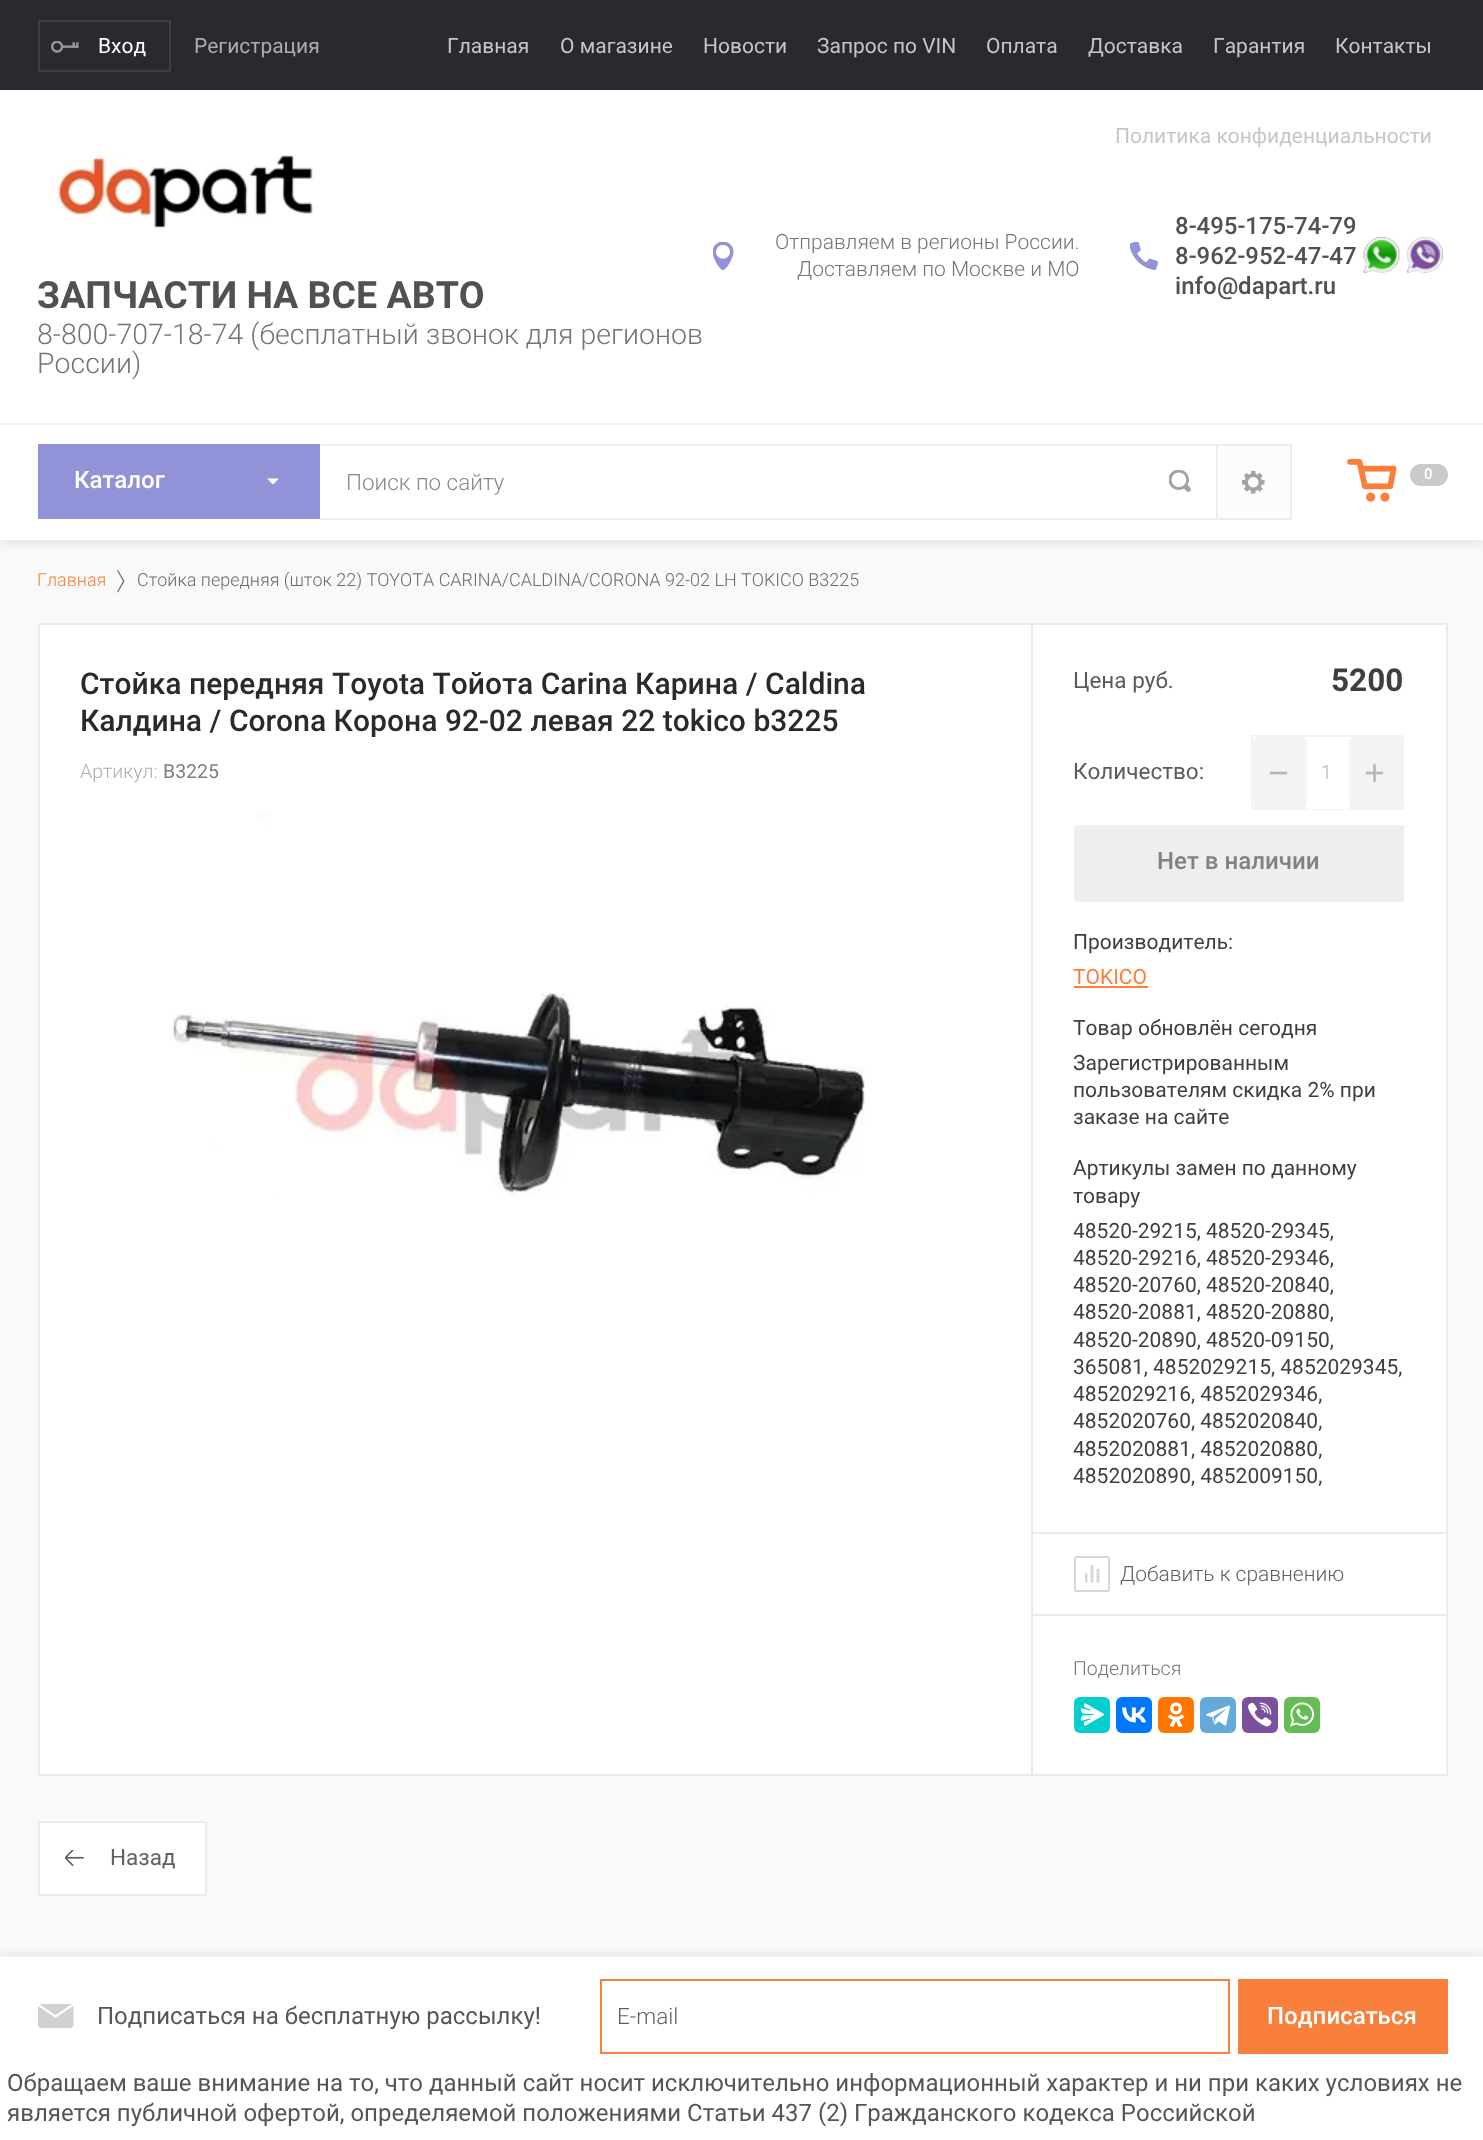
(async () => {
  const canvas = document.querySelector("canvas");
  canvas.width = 1483;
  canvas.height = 2140;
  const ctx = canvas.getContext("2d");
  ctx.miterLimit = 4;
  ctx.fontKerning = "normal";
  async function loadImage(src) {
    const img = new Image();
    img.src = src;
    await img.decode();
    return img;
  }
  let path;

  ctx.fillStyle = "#f9f9f9";
  ctx.fillRect(0, 0, 1483, 2140);
  ctx.fillStyle = "#2b292e";
  ctx.fillRect(0, 0, 1483, 90);
  ctx.drawImage(await loadImage("img/1.png"), 51, 41, 28, 12);
  ctx.strokeStyle = "#403e43";
  ctx.lineWidth = 2;
  ctx.strokeRect(39, 21, 131, 50);
  ctx.fillStyle = "#ffffff";
  ctx.fillRect(0, 90, 1483, 333);
  ctx.drawImage(await loadImage("img/2.png"), 713, 242, 21, 28);
  ctx.drawImage(await loadImage("img/3.png"), 1130, 242, 28, 28);
  ctx.drawImage(await loadImage("img/4.png"), 1363, 237, 37, 36);
  ctx.drawImage(await loadImage("img/5.png"), 1407, 237, 36, 36);
  ctx.drawImage(await loadImage("img/6.png"), 56, 155, 257, 74);
  ctx.fillStyle = "rgba(0, 0, 0, 0.06)";
  ctx.filter = "blur(4px)";
  ctx.beginPath();
  ctx.rect(0, 429, 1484, 117);
  ctx.fill();
  ctx.filter = "none";
  for (const [x, y, w, h, color] of [
    [0, 425, 1483, 115, "#ffffff"],
    [1218, 446, 72, 72, "#fcfcfc"],
    [0, 423, 1483, 2, "#f3f3f3"],
    [38, 444, 282, 75, "#9292d9"],
  ]) {
    ctx.fillStyle = color;
    ctx.fillRect(x, y, w, h);
  }
  ctx.fillStyle = "#ffffff";
  path = new Path2D("M267 478.5H279L273 484.5Z");
  ctx.fill(path);
  for (const [x, y, w, h, color] of [
    [320, 444, 972, 2, "#eeeeee"],
    [1290, 444, 2, 75, "#eeeeee"],
    [320, 518, 972, 2, "#eeeeee"],
  ]) {
    ctx.fillStyle = color;
    ctx.fillRect(x, y, w, h);
  }
  ctx.drawImage(await loadImage("img/7.png"), 1169, 470, 22, 22);
  ctx.drawImage(await loadImage("img/8.png"), 1242, 471, 23, 23);
  path = new Path2D("M1216 519V444L1218 446V519Z");
  ctx.fill(path);
  ctx.drawImage(await loadImage("img/9.png"), 1347, 459, 50, 43);
  ctx.fillStyle = "#cacaca";
  ctx.beginPath();
  ctx.roundRect(1410, 464, 38, 22, 11);
  ctx.fill();
  ctx.fillStyle = "#6b6b6b";
  path = new Path2D("M124.5 581L118 592.5L117 592L123 581L117 570.5L118 570Z");
  ctx.fill(path, "evenodd");
  ctx.fillStyle = "#ffffff";
  ctx.beginPath();
  ctx.rect(39, 624, 1408, 1151);
  ctx.fill();
  ctx.strokeStyle = "#ebebeb";
  ctx.stroke();
  for (const [x, y, w, h, color] of [
    [1032, 1532, 414, 2, "#ebebeb"],
    [1032, 1614, 414, 2, "#ebebeb"],
    [1031, 624, 2, 1151, "#ebebeb"],
  ]) {
    ctx.fillStyle = color;
    ctx.fillRect(x, y, w, h);
  }
  ctx.drawImage(await loadImage("img/10.png"), 169, 813, 696, 384);
  ctx.strokeStyle = "#f3f3f3";
  ctx.strokeRect(1252, 736, 151, 73);
  ctx.fillStyle = "#f3f3f3";
  ctx.beginPath();
  ctx.roundRect(1253, 737, 54, 72, 6);
  ctx.fill();
  ctx.fillStyle = "#ffffff";
  ctx.fillRect(1307, 808, 42, 1);
  ctx.fillStyle = "#f3f3f3";
  ctx.beginPath();
  ctx.roundRect(1349, 737, 54, 72, 6);
  ctx.fill();
  ctx.fillStyle = "#eeeeee";
  ctx.beginPath();
  ctx.roundRect(1074, 825, 330, 77, 3);
  ctx.fill();
  ctx.fillStyle = "#f8803c";
  ctx.fillRect(1074, 986, 74, 2);
  ctx.drawImage(await loadImage("img/11.png"), 1085, 1565, 15, 18);
  ctx.beginPath();
  ctx.roundRect(1075, 1557, 34, 34, 2);
  ctx.strokeStyle = "#d7d7d7";
  ctx.stroke();
  ctx.fillStyle = "#03cece";
  ctx.beginPath();
  ctx.roundRect(1074, 1697, 36, 36, 6);
  ctx.fill();
  ctx.drawImage(await loadImage("img/12.png"), 1080, 1703, 24, 23);
  ctx.fillStyle = "#0077ff";
  ctx.beginPath();
  ctx.roundRect(1116, 1697, 36, 36, 6);
  ctx.fill();
  ctx.drawImage(await loadImage("img/13.png"), 1122, 1707, 24, 16);
  ctx.fillStyle = "#ff7700";
  ctx.beginPath();
  ctx.roundRect(1158, 1697, 36, 36, 6);
  ctx.fill();
  ctx.drawImage(await loadImage("img/14.png"), 1168, 1702, 16, 25);
  ctx.fillStyle = "#64a9dc";
  ctx.beginPath();
  ctx.roundRect(1200, 1697, 36, 36, 6);
  ctx.fill();
  ctx.drawImage(await loadImage("img/15.png"), 1206, 1705, 24, 21);
  ctx.fillStyle = "#7b519d";
  ctx.beginPath();
  ctx.roundRect(1242, 1697, 36, 36, 6);
  ctx.fill();
  ctx.drawImage(await loadImage("img/16.png"), 1248, 1702, 24, 25);
  ctx.fillStyle = "#65bc54";
  ctx.beginPath();
  ctx.roundRect(1284, 1697, 36, 36, 6);
  ctx.fill();
  ctx.drawImage(await loadImage("img/17.png"), 1290, 1702, 24, 25);
  ctx.fillStyle = "#ffffff";
  ctx.fillRect(40, 1823, 165, 71);
  ctx.drawImage(await loadImage("img/18.png"), 65, 1850, 19, 16);
  ctx.strokeStyle = "#ebebeb";
  ctx.strokeRect(39, 1822, 167, 73);
  ctx.fillStyle = "rgba(0, 0, 0, 0.09)";
  ctx.filter = "blur(6px)";
  ctx.beginPath();
  ctx.rect(0, 1955, 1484, 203);
  ctx.fill();
  ctx.filter = "none";
  ctx.fillStyle = "#ffffff";
  ctx.fillRect(0, 1957, 1483, 183);
  ctx.fillStyle = "#f1f1f1";
  ctx.fillRect(0, 1955, 1483, 2);
  ctx.drawImage(await loadImage("img/19.png"), 38, 2004, 36, 24);
  ctx.strokeStyle = "#f8803c";
  ctx.strokeRect(601, 1980, 628, 73);
  ctx.fillStyle = "#f8803c";
  ctx.fillRect(1238, 1979, 210, 75);
  ctx.font = "21px Roboto";
  ctx.fillStyle = "#ffffff";
  ctx.fillText("Вход", 98, 53);
  ctx.fillStyle = "#adadad";
  ctx.fillText("Регистрация", 194, 53);
  ctx.fillStyle = "#c6c6c6";
  for (const [text, x, y] of [
    ["Главная", 447, 53],
    ["О магазине", 560, 53],
    ["Новости", 703, 53],
    ["Запрос по VIN", 817, 53],
    ["Оплата", 986, 53],
    ["Доставка", 1088, 53],
    ["Гарантия", 1213, 53],
    ["Контакты", 1335, 53],
    ["Политика конфиденциальности", 1115, 143],
  ]) {
    ctx.fillText(text, x, y);
  }
  ctx.font = "300 21px Roboto";
  ctx.fillStyle = "#757474";
  ctx.fillText("Отправляем в регионы России.", 775, 249);
  ctx.fillText("Доставляем по Москве и МО", 797, 276);
  ctx.font = "500 24px Roboto";
  ctx.fillStyle = "#515151";
  for (const [text, x, y] of [
    ["8-495-175-74-79", 1175, 234],
    ["8-962-952-47-47", 1175, 264],
    ["info@dapart.ru", 1175, 294],
  ]) {
    ctx.fillText(text, x, y);
  }
  ctx.font = "bold 37.5px Roboto";
  ctx.fillText("ЗАПЧАСТИ НА ВСЕ АВТО", 37, 308);
  ctx.font = "300 28.5px Roboto";
  ctx.fillStyle = "#757474";
  ctx.fillText("8-800-707-18-74 (бесплатный звонок для регионов", 37, 344);
  ctx.fillText("России)", 37, 373);
  ctx.font = "500 24px Roboto";
  ctx.fillStyle = "#ffffff";
  ctx.fillText("Каталог", 74, 488);
  ctx.font = "300 22.5px Roboto";
  ctx.fillStyle = "#8a8989";
  ctx.fillText("Поиск по сайту", 346, 490);
  ctx.font = "500 15px Roboto";
  ctx.fillStyle = "#ffffff";
  ctx.fillText("0", 1424, 479);
  ctx.font = "300 18px Roboto";
  ctx.fillStyle = "#f8803c";
  ctx.fillText("Главная", 37, 586);
  ctx.fillStyle = "#6b6b6b";
  ctx.fillText("Стойка передняя (шток 22) TOYOTA CARINA/CALDINA/CORONA 92-02 LH TOKICO B3225", 137, 586);
  ctx.font = "500 30px Roboto";
  ctx.fillStyle = "#2b292e";
  ctx.fillText("Стойка передняя Toyota Тойота Carina Карина / Caldina", 80, 694);
  ctx.fillText("Калдина / Corona Корона 92-02 левая 22 tokico b3225", 80, 731);
  ctx.font = "300 19.5px Roboto";
  ctx.fillStyle = "#adadad";
  ctx.fillText("Артикул:", 80, 778);
  ctx.font = "19.5px Roboto";
  ctx.fillStyle = "#808080";
  ctx.fillText("B3225", 163, 778);
  ctx.font = "22.5px Roboto";
  ctx.fillStyle = "#5b5a5a";
  ctx.fillText("Цена руб.", 1073, 688);
  ctx.font = "bold 31.5px Roboto";
  ctx.fillStyle = "#3f3f3f";
  ctx.fillText("5200", 1331, 691);
  ctx.font = "22.5px Roboto";
  ctx.fillStyle = "#5b5a5a";
  ctx.fillText("Количество:", 1073, 779);
  ctx.font = "36px Liberation Sans";
  ctx.fillStyle = "#b5b5b5";
  ctx.fillText("−", 1268, 785);
  ctx.font = "300 19.5px Roboto";
  ctx.fillText("1", 1321, 779);
  ctx.font = "36px Liberation Sans";
  ctx.fillText("+", 1364, 785);
  ctx.font = "500 24px Roboto";
  ctx.fillStyle = "#827f87";
  ctx.fillText("Нет в наличии", 1157, 869);
  ctx.font = "21px Roboto";
  ctx.fillStyle = "#3f3f3f";
  ctx.fillText("Производитель:", 1073, 949);
  ctx.fillStyle = "#f8803c";
  ctx.fillText("TOKICO", 1073, 984);
  ctx.fillStyle = "#3f3f3f";
  for (const [text, x, y] of [
    ["Товар обновлён сегодня", 1073, 1035],
    ["Зарегистрированным", 1073, 1070],
    ["пользователям скидка 2% при", 1073, 1097],
    ["заказе на сайте", 1073, 1124],
    ["Артикулы замен по данному", 1073, 1175],
    ["товару", 1073, 1203],
    ["48520-29215, 48520-29345,", 1073, 1238],
    ["48520-29216, 48520-29346,", 1073, 1265],
    ["48520-20760, 48520-20840,", 1073, 1292],
    ["48520-20881, 48520-20880,", 1073, 1319],
    ["48520-20890, 48520-09150,", 1073, 1347],
    ["365081, 4852029215, 4852029345,", 1073, 1374],
    ["4852029216, 4852029346,", 1073, 1401],
    ["4852020760, 4852020840,", 1073, 1428],
    ["4852020881, 4852020880,", 1073, 1456],
    ["4852020890, 4852009150,", 1073, 1483],
  ]) {
    ctx.fillText(text, x, y);
  }
  ctx.font = "300 21px Roboto";
  ctx.fillStyle = "#616161";
  ctx.fillText("Добавить к сравнению", 1120, 1581);
  ctx.font = "300 19.5px Roboto";
  ctx.fillStyle = "#757474";
  ctx.fillText("Поделиться", 1073, 1675);
  ctx.font = "22.5px Roboto";
  ctx.fillStyle = "#616161";
  ctx.fillText("Назад", 110, 1865);
  ctx.font = "24px Roboto";
  ctx.fillStyle = "#565458";
  ctx.fillText("Подписаться на бесплатную рассылку!", 97, 2024);
  ctx.font = "300 22.5px Roboto";
  ctx.fillStyle = "#616161";
  ctx.fillText("E-mail", 617, 2024);
  ctx.font = "500 24px Roboto";
  ctx.fillStyle = "#ffffff";
  ctx.fillText("Подписаться", 1267, 2024);
  ctx.font = "24px Roboto";
  ctx.fillStyle = "#565458";
  ctx.fillText("Обращаем ваше внимание на то, что данный сайт носит исключительно информационный характер и ни при каких условиях не", 7, 2091);
  ctx.fillText("является публичной офертой, определяемой положениями Статьи 437 (2) Гражданского кодекса Российской", 7, 2121);
})();
